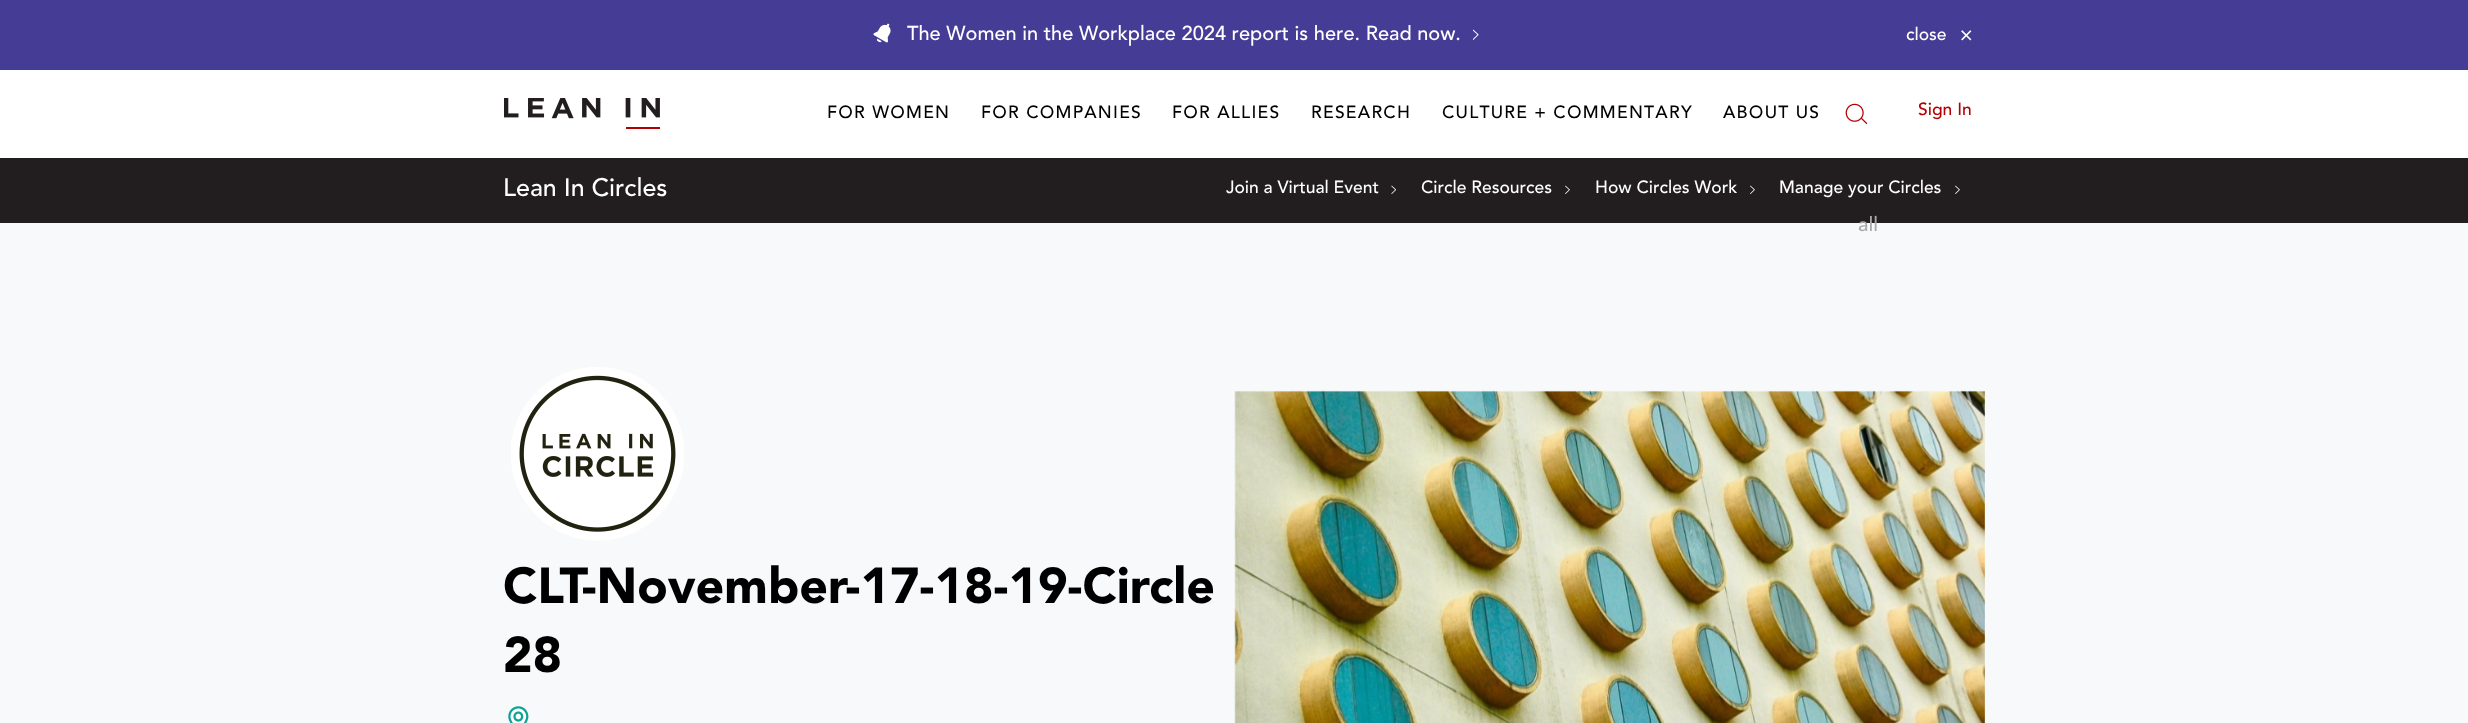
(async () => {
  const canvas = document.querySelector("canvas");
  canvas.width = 2468;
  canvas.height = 723;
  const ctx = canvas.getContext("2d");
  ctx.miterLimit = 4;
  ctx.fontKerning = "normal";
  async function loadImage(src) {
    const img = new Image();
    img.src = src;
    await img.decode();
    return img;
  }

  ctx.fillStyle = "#ffffff";
  ctx.fillRect(0, 0, 2468, 723);
  ctx.fillStyle = "#453d95";
  ctx.fillRect(0, 0, 2468, 70);
  ctx.drawImage(await loadImage("img/1.png"), 873, 23, 18, 20);
  ctx.drawImage(await loadImage("img/2.png"), 1473, 29, 6, 11);
  ctx.drawImage(await loadImage("img/3.png"), 1961, 30, 11, 11);
  ctx.drawImage(await loadImage("img/4.png"), 504, 98, 156, 31);
  ctx.drawImage(await loadImage("img/5.png"), 1845, 103, 23, 22);
  ctx.fillStyle = "#221e1f";
  ctx.fillRect(0, 158, 2468, 65);
  ctx.drawImage(await loadImage("img/6.png"), 1391, 185, 5, 9);
  ctx.drawImage(await loadImage("img/7.png"), 1565, 185, 5, 9);
  ctx.drawImage(await loadImage("img/7.png"), 1750, 185, 5, 9);
  ctx.drawImage(await loadImage("img/7.png"), 1955, 185, 5, 9);
  ctx.fillStyle = "#f7f9fa";
  ctx.fillRect(0, 223, 2468, 500);
  ctx.drawImage(await loadImage("img/8.png"), 511, 367, 173, 174);
  ctx.drawImage(await loadImage("img/9.png"), 508, 706, 21, 17);
  ctx.drawImage(await loadImage("img/10.png"), 1234, 390, 751, 333);
  ctx.font = "20px Avenir";
  ctx.fillStyle = "#ffffff";
  ctx.fillText("The Women in the Workplace 2024 report is here. Read now.", 907, 40);
  ctx.font = "17.5px Avenir";
  ctx.fillText("close", 1906, 40);
  ctx.letterSpacing = "1.25px";
  ctx.fillStyle = "#000000";
  for (const [text, x, y] of [
    ["FOR WOMEN", 827, 118],
    ["FOR COMPANIES", 981, 118],
    ["FOR ALLIES", 1172, 118],
    ["RESEARCH", 1311, 118],
    ["CULTURE + COMMENTARY", 1442, 118],
    ["ABOUT US", 1723, 118],
  ]) {
    ctx.fillText(text, x, y);
  }
  ctx.letterSpacing = "0px";
  ctx.font = "20px Avenir";
  ctx.fillStyle = "#aaa9aa";
  ctx.fillText("all", 1858, 231);
  ctx.font = "17.5px Avenir";
  ctx.fillStyle = "#b30101";
  ctx.fillText("Sign In", 1918, 115);
  ctx.font = "25px Avenir";
  ctx.fillStyle = "#ffffff";
  ctx.fillText("Lean In Circles", 503, 196);
  ctx.font = "17.5px Avenir";
  for (const [text, x, y] of [
    ["Join a Virtual Event", 1226, 193],
    ["Circle Resources", 1421, 193],
    ["How Circles Work", 1595, 193],
    ["Manage your Circles", 1779, 193],
  ]) {
    ctx.fillText(text, x, y);
  }
  ctx.font = "900 50px Avenir";
  ctx.fillStyle = "#000000";
  ctx.fillText("CLT-November-17-18-19-Circle", 503, 603);
  ctx.fillText("28", 503, 672);
})();
